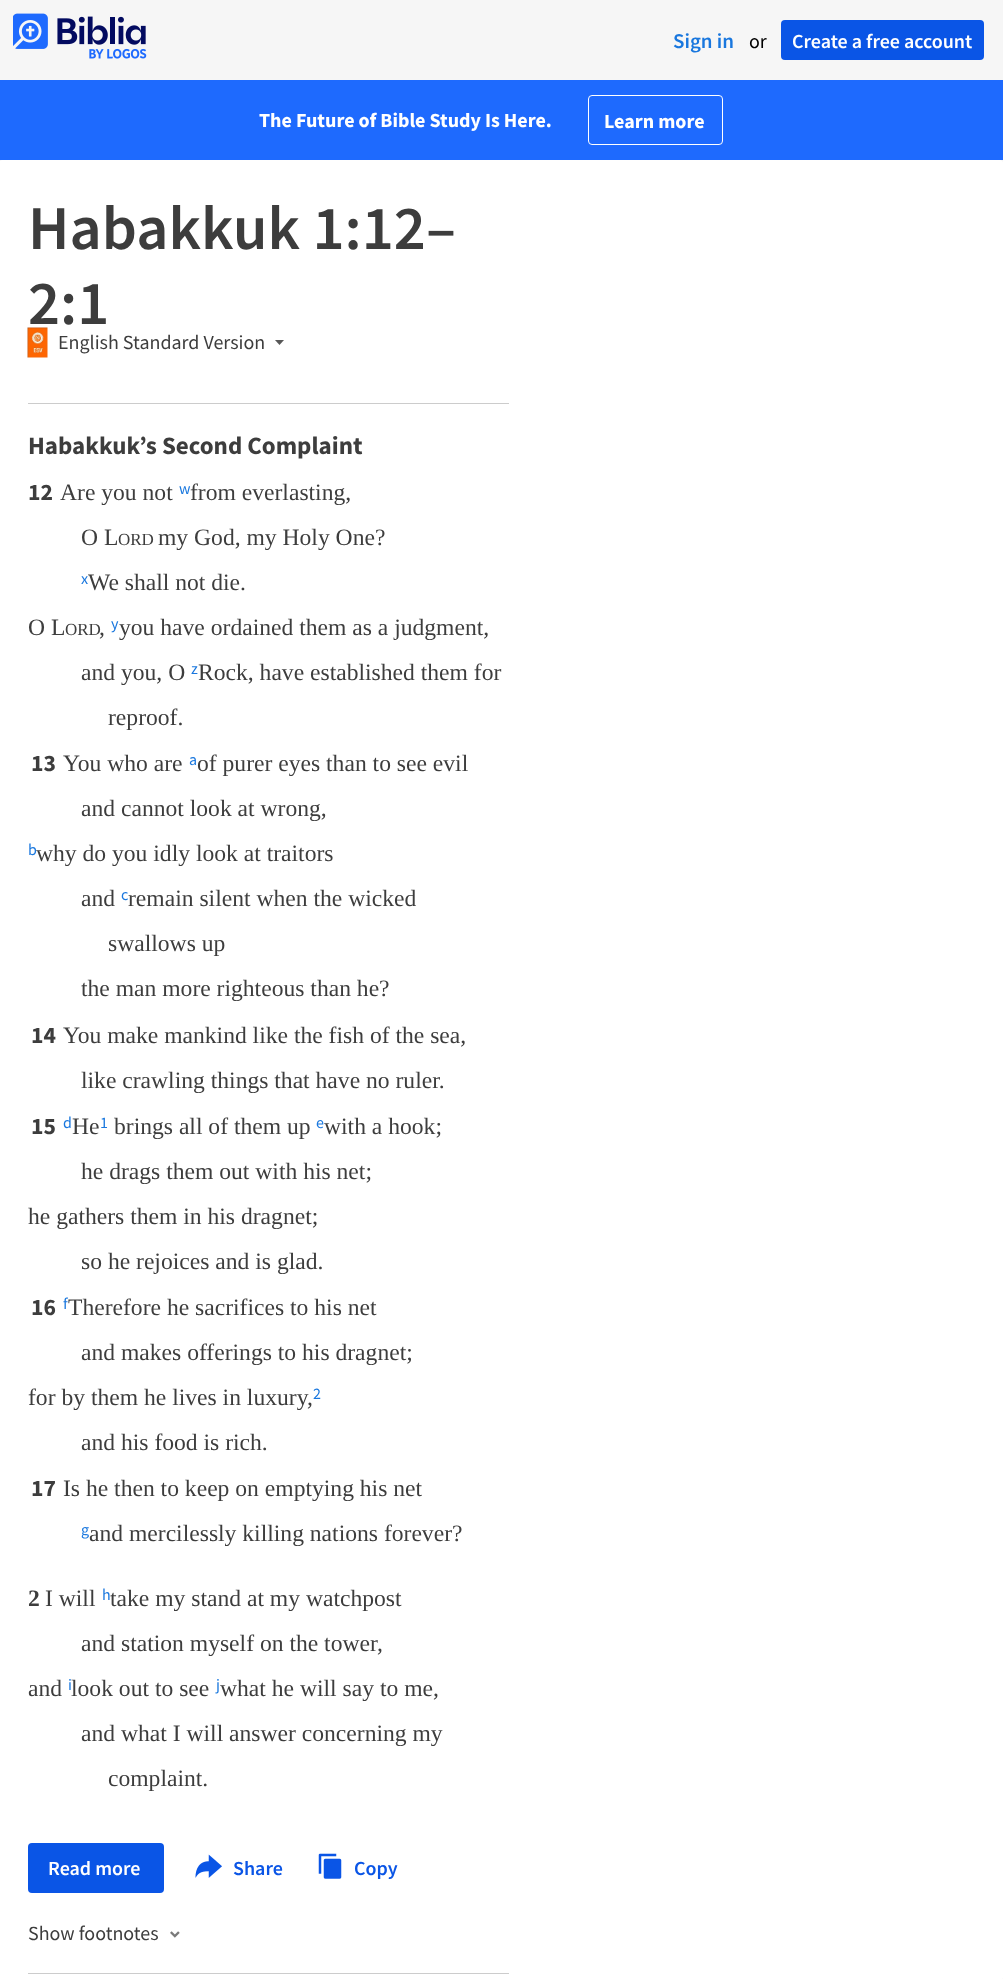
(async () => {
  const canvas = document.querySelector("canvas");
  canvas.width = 1003;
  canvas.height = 1979;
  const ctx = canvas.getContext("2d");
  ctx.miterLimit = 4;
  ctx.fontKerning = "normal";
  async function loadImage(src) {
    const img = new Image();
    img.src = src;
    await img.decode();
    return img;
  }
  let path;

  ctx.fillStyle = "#f6f6f6";
  ctx.fillRect(0, 0, 1003, 1979);
  ctx.drawImage(await loadImage("img/1.png"), 13, 13, 134, 46);
  ctx.fillStyle = "#0a55e6";
  ctx.beginPath();
  ctx.roundRect(781, 20, 203, 40, 4);
  ctx.fill();
  ctx.fillStyle = "#1e6afe";
  ctx.fillRect(0, 80, 1003, 80);
  ctx.beginPath();
  ctx.roundRect(588.5, 95.5, 134, 49, 3.5);
  ctx.strokeStyle = "#ffffff";
  ctx.stroke();
  ctx.fillStyle = "#ffffff";
  ctx.beginPath();
  ctx.roundRect(-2, 160, 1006, 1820, 5);
  ctx.fill();
  ctx.fillStyle = "#cccccc";
  ctx.fillRect(28, 403, 481, 1);
  ctx.drawImage(await loadImage("img/2.png"), 27, 327, 21, 31);
  ctx.fillStyle = "#585858";
  path = new Path2D("M279.5 345L284 340H275Z");
  ctx.fill(path, "evenodd");
  ctx.fillStyle = "#0a55e6";
  ctx.beginPath();
  ctx.roundRect(28, 1843, 136, 50, 4);
  ctx.fill();
  ctx.drawImage(await loadImage("img/3.png"), 195, 1854, 27, 24);
  ctx.drawImage(await loadImage("img/4.png"), 318, 1853, 24, 26);
  ctx.drawImage(await loadImage("img/5.png"), 170, 1931, 10, 7);
  ctx.fillStyle = "#cccccc";
  ctx.fillRect(28, 1973, 481, 1);
  ctx.font = "600 21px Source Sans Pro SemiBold";
  ctx.fillStyle = "#1977de";
  ctx.fillText("Sign in", 673, 48);
  ctx.font = "20px Source Sans Pro";
  ctx.fillStyle = "#000000";
  ctx.fillText("or", 749, 48);
  ctx.font = "600 20px Source Sans Pro SemiBold";
  ctx.fillStyle = "#ffffff";
  ctx.fillText("Create a free account", 792, 48);
  ctx.font = "bold 20px Source Sans Pro";
  ctx.fillText("The Future of Bible Study Is Here.", 259, 127);
  ctx.fillText("Learn more", 604, 128);
  ctx.font = "600 62.5px Source Sans Pro SemiBold";
  ctx.fillStyle = "#3d3d3d";
  ctx.fillText("Habakkuk 1:12–", 28, 249);
  ctx.fillText("2:1", 28, 324);
  ctx.font = "20px Source Sans Pro";
  ctx.fillText("English Standard Version", 58, 349);
  ctx.font = "bold 25px Source Sans Pro";
  ctx.fillText("Habakkuk’s Second Complaint", 28, 454);
  ctx.font = "bold 23.6px Source Sans Pro";
  ctx.fillText("12", 28, 500);
  ctx.font = "23.6px Liberation Serif";
  ctx.fillText("Are you not", 60, 500);
  ctx.font = "16px Source Sans Pro";
  ctx.fillStyle = "#1977de";
  ctx.fillText("w", 179, 494);
  ctx.font = "23.6px Liberation Serif";
  ctx.fillStyle = "#3d3d3d";
  ctx.fillText("from everlasting,", 190, 500);
  ctx.fillText("O L", 81, 545);
  ctx.font = "17px Liberation Serif";
  ctx.fillText("ORD", 118, 545);
  ctx.font = "23.6px Liberation Serif";
  ctx.fillText("my God, my Holy One?", 158, 545);
  ctx.font = "16px Source Sans Pro";
  ctx.fillStyle = "#1977de";
  ctx.fillText("x", 81, 584);
  ctx.font = "23.6px Liberation Serif";
  ctx.fillStyle = "#3d3d3d";
  ctx.fillText("We shall not die.", 88, 590);
  ctx.fillText("O L", 28, 635);
  ctx.font = "17px Liberation Serif";
  ctx.fillText("ORD", 65, 635);
  ctx.font = "23.6px Liberation Serif";
  ctx.fillText(",", 99, 635);
  ctx.font = "16px Source Sans Pro";
  ctx.fillStyle = "#1977de";
  ctx.fillText("y", 111, 629);
  ctx.font = "23.6px Liberation Serif";
  ctx.fillStyle = "#3d3d3d";
  ctx.fillText("you have ordained them as a judgment,", 119, 635);
  ctx.fillText("and you, O", 81, 680);
  ctx.font = "16px Source Sans Pro";
  ctx.fillStyle = "#1977de";
  ctx.fillText("z", 191, 674);
  ctx.font = "23.6px Liberation Serif";
  ctx.fillStyle = "#3d3d3d";
  ctx.fillText("Rock, have established them for", 198, 680);
  ctx.fillText("reproof.", 108, 725);
  ctx.font = "bold 23.6px Source Sans Pro";
  ctx.fillText("13", 31, 771);
  ctx.font = "23.6px Liberation Serif";
  ctx.fillText("You who are", 63, 771);
  ctx.font = "16px Source Sans Pro";
  ctx.fillStyle = "#1977de";
  ctx.fillText("a", 189, 765);
  ctx.font = "23.6px Liberation Serif";
  ctx.fillStyle = "#3d3d3d";
  ctx.fillText("of purer eyes than to see evil", 197, 771);
  ctx.fillText("and cannot look at wrong,", 81, 816);
  ctx.font = "16px Source Sans Pro";
  ctx.fillStyle = "#1977de";
  ctx.fillText("b", 28, 855);
  ctx.font = "23.6px Liberation Serif";
  ctx.fillStyle = "#3d3d3d";
  ctx.fillText("why do you idly look at traitors", 36, 861);
  ctx.fillText("and", 81, 906);
  ctx.font = "16px Source Sans Pro";
  ctx.fillStyle = "#1977de";
  ctx.fillText("c", 121, 900);
  ctx.font = "23.6px Liberation Serif";
  ctx.fillStyle = "#3d3d3d";
  for (const [text, x, y] of [
    ["remain silent when the wicked", 128, 906],
    ["swallows up", 108, 951],
    ["the man more righteous than he?", 81, 996],
  ]) {
    ctx.fillText(text, x, y);
  }
  ctx.font = "bold 23.6px Source Sans Pro";
  ctx.fillText("14", 31, 1043);
  ctx.font = "23.6px Liberation Serif";
  ctx.fillText("You make mankind like the fish of the sea,", 63, 1043);
  ctx.fillText("like crawling things that have no ruler.", 81, 1088);
  ctx.font = "bold 23.6px Source Sans Pro";
  ctx.fillText("15", 31, 1134);
  ctx.font = "16px Source Sans Pro";
  ctx.fillStyle = "#1977de";
  ctx.fillText("d", 63, 1128);
  ctx.font = "23.6px Liberation Serif";
  ctx.fillStyle = "#3d3d3d";
  ctx.fillText("He", 72, 1134);
  ctx.font = "16px Source Sans Pro";
  ctx.fillStyle = "#1977de";
  ctx.fillText("1", 100, 1128);
  ctx.font = "23.6px Liberation Serif";
  ctx.fillStyle = "#3d3d3d";
  ctx.fillText("brings all of them up", 114, 1134);
  ctx.font = "16px Source Sans Pro";
  ctx.fillStyle = "#1977de";
  ctx.fillText("e", 316, 1128);
  ctx.font = "23.6px Liberation Serif";
  ctx.fillStyle = "#3d3d3d";
  for (const [text, x, y] of [
    ["with a hook;", 324, 1134],
    ["he drags them out with his net;", 81, 1179],
    ["he gathers them in his dragnet;", 28, 1224],
    ["so he rejoices and is glad.", 81, 1269],
  ]) {
    ctx.fillText(text, x, y);
  }
  ctx.font = "bold 23.6px Source Sans Pro";
  ctx.fillText("16", 31, 1315);
  ctx.font = "16px Source Sans Pro";
  ctx.fillStyle = "#1977de";
  ctx.fillText("f", 63, 1309);
  ctx.font = "23.6px Liberation Serif";
  ctx.fillStyle = "#3d3d3d";
  for (const [text, x, y] of [
    ["Therefore he sacrifices to his net", 68, 1315],
    ["and makes offerings to his dragnet;", 81, 1360],
    ["for by them he lives in luxury,", 28, 1405],
  ]) {
    ctx.fillText(text, x, y);
  }
  ctx.font = "16px Source Sans Pro";
  ctx.fillStyle = "#1977de";
  ctx.fillText("2", 313, 1399);
  ctx.font = "23.6px Liberation Serif";
  ctx.fillStyle = "#3d3d3d";
  ctx.fillText("and his food is rich.", 81, 1450);
  ctx.font = "bold 23.6px Source Sans Pro";
  ctx.fillText("17", 31, 1496);
  ctx.font = "23.6px Liberation Serif";
  ctx.fillText("Is he then to keep on emptying his net", 63, 1496);
  ctx.font = "16px Source Sans Pro";
  ctx.fillStyle = "#1977de";
  ctx.fillText("g", 81, 1535);
  ctx.font = "23.6px Liberation Serif";
  ctx.fillStyle = "#3d3d3d";
  ctx.fillText("and mercilessly killing nations forever?", 89, 1541);
  ctx.font = "bold 23.6px Liberation Serif";
  ctx.fillText("2", 28, 1606);
  ctx.font = "23.6px Liberation Serif";
  ctx.fillText("I will", 45, 1606);
  ctx.font = "16px Source Sans Pro";
  ctx.fillStyle = "#1977de";
  ctx.fillText("h", 102, 1600);
  ctx.font = "23.6px Liberation Serif";
  ctx.fillStyle = "#3d3d3d";
  for (const [text, x, y] of [
    ["take my stand at my watchpost", 110, 1606],
    ["and station myself on the tower,", 81, 1651],
    ["and", 28, 1696],
  ]) {
    ctx.fillText(text, x, y);
  }
  ctx.font = "16px Source Sans Pro";
  ctx.fillStyle = "#1977de";
  ctx.fillText("i", 68, 1690);
  ctx.font = "23.6px Liberation Serif";
  ctx.fillStyle = "#3d3d3d";
  ctx.fillText("look out to see", 71, 1696);
  ctx.font = "16px Source Sans Pro";
  ctx.fillStyle = "#1977de";
  ctx.fillText("j", 216, 1690);
  ctx.font = "23.6px Liberation Serif";
  ctx.fillStyle = "#3d3d3d";
  for (const [text, x, y] of [
    ["what he will say to me,", 220, 1696],
    ["and what I will answer concerning my", 81, 1741],
    ["complaint.", 108, 1786],
  ]) {
    ctx.fillText(text, x, y);
  }
  ctx.font = "600 20px Source Sans Pro SemiBold";
  ctx.fillStyle = "#ffffff";
  ctx.fillText("Read more", 48, 1875);
  ctx.fillStyle = "#0a55e6";
  ctx.fillText("Share", 233, 1875);
  ctx.fillText("Copy", 354, 1875);
  ctx.font = "20px Source Sans Pro";
  ctx.fillStyle = "#3d3d3d";
  ctx.fillText("Show footnotes", 28, 1940);
})();
